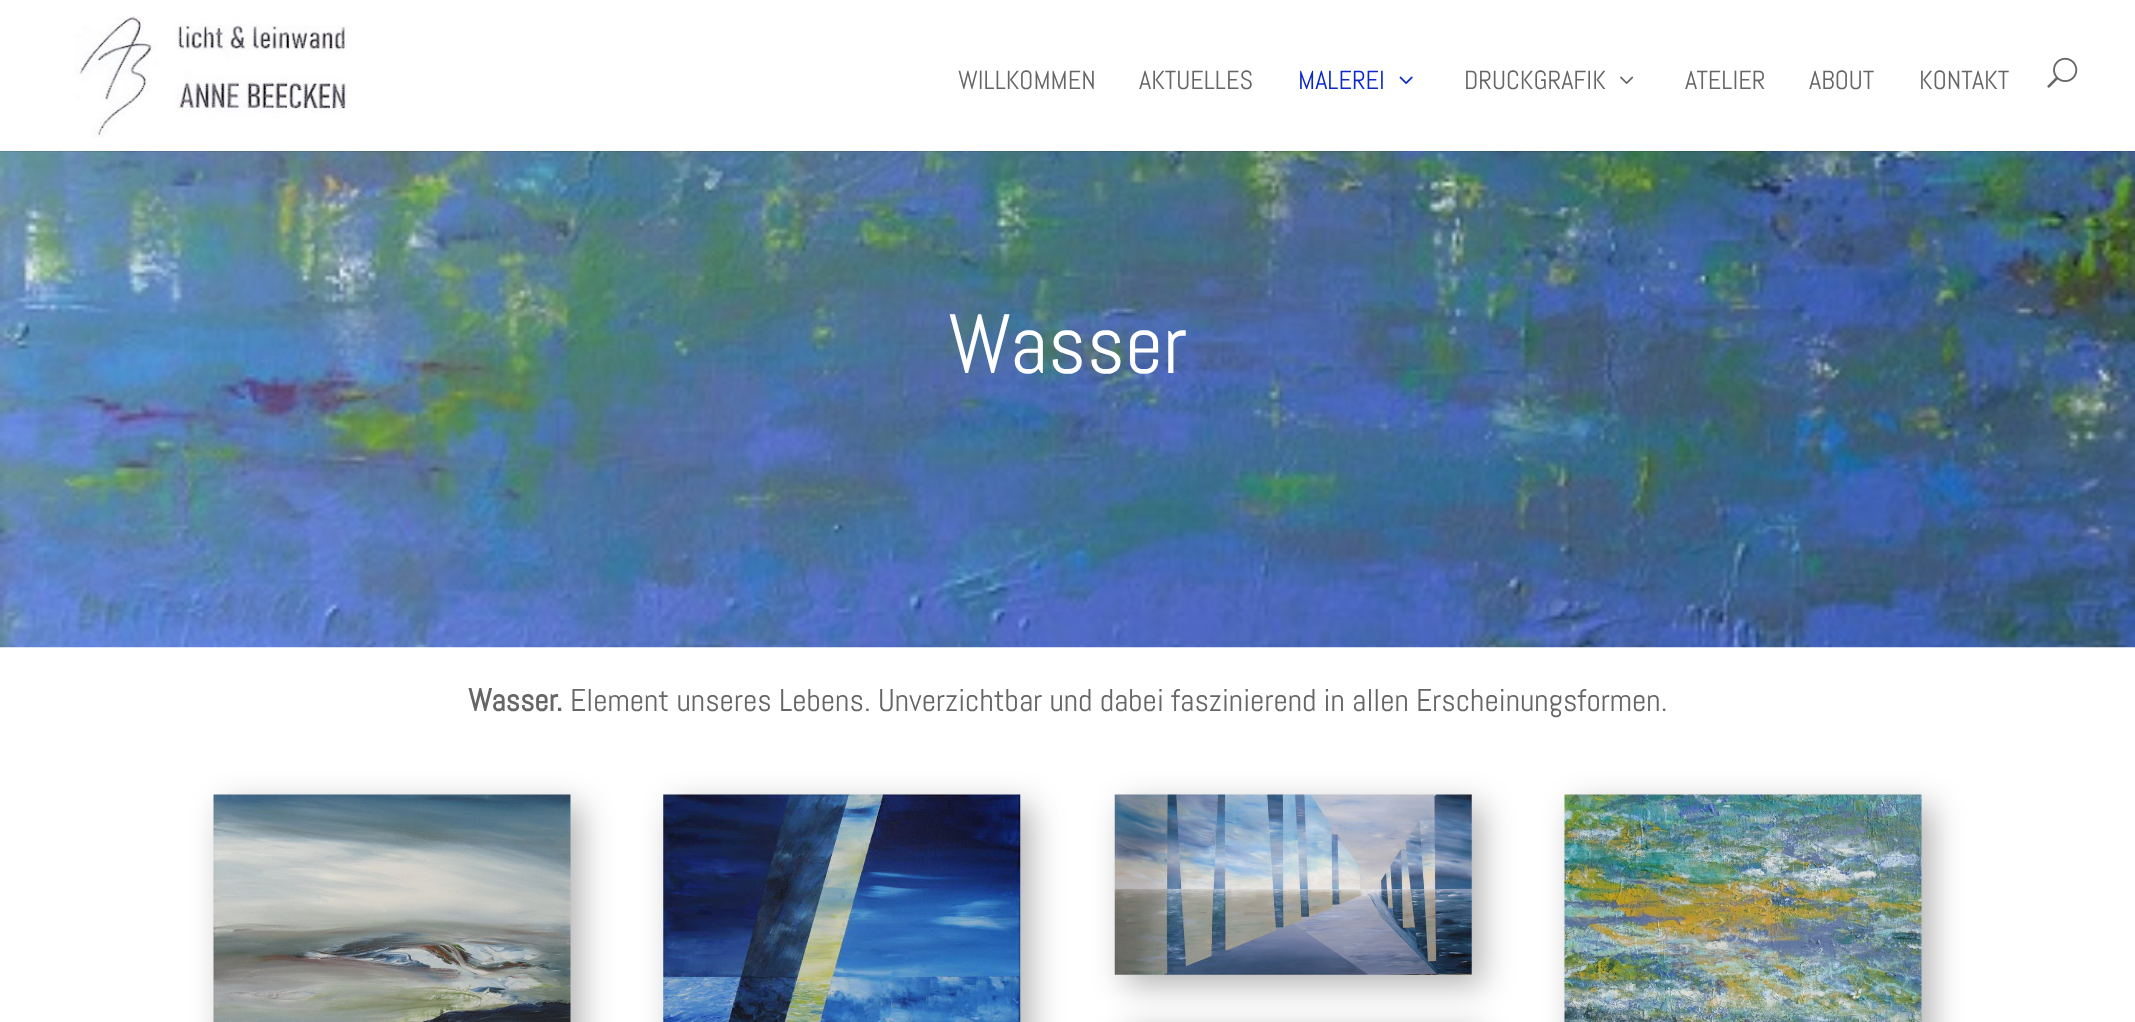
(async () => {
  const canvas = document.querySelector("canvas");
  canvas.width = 2135;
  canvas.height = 1022;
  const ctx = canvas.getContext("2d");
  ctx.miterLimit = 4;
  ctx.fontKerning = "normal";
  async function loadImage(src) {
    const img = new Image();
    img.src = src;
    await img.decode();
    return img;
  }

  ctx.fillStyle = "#ffffff";
  ctx.fillRect(0, 0, 2135, 1022);
  ctx.drawImage(await loadImage("img/5.png"), 0, 151, 2135, 497);
  ctx.fillStyle = "rgba(0, 0, 0, 0.1)";
  ctx.fillRect(0, 151, 2135, 1);
  ctx.drawImage(await loadImage("img/1.png"), 75, 16, 277, 122);
  ctx.drawImage(await loadImage("img/2.png"), 1399, 76, 14, 8);
  ctx.drawImage(await loadImage("img/3.png"), 1620, 76, 14, 8);
  ctx.drawImage(await loadImage("img/4.png"), 2047, 57, 31, 31);
  ctx.fillStyle = "rgba(0, 0, 0, 0.3)";
  ctx.filter = "blur(16px)";
  ctx.beginPath();
  ctx.rect(224, 805, 357, 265);
  ctx.fill();
  ctx.filter = "none";
  ctx.drawImage(await loadImage("img/6.png"), 213, 794, 358, 228);
  ctx.filter = "blur(16px)";
  ctx.beginPath();
  ctx.rect(674, 805, 357, 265);
  ctx.fill();
  ctx.filter = "none";
  ctx.drawImage(await loadImage("img/7.png"), 663, 794, 358, 228);
  ctx.filter = "blur(16px)";
  ctx.beginPath();
  ctx.rect(1125, 805, 357, 180);
  ctx.fill();
  ctx.filter = "none";
  ctx.drawImage(await loadImage("img/8.png"), 1114, 794, 358, 181);
  ctx.filter = "blur(16px)";
  ctx.beginPath();
  ctx.rect(1125, 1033, 357, 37);
  ctx.fill();
  ctx.filter = "none";
  ctx.filter = "blur(16px)";
  ctx.beginPath();
  ctx.rect(1575, 805, 357, 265);
  ctx.fill();
  ctx.filter = "none";
  ctx.drawImage(await loadImage("img/9.png"), 1564, 794, 358, 228);
  ctx.font = "26.25px Abel";
  ctx.fillStyle = "#666666";
  ctx.fillText("WILLKOMMEN", 958, 89);
  ctx.fillText("AKTUELLES", 1139, 89);
  ctx.fillStyle = "#0c28c9";
  ctx.fillText("MALEREI", 1298, 89);
  ctx.fillStyle = "#666666";
  for (const [text, x, y] of [
    ["DRUCKGRAFIK", 1464, 89],
    ["ATELIER", 1685, 89],
    ["ABOUT", 1809, 89],
    ["KONTAKT", 1919, 89],
  ]) {
    ctx.fillText(text, x, y);
  }
  ctx.font = "84px Abel";
  ctx.fillStyle = "#ffffff";
  ctx.fillText("Wasser", 948, 373);
  ctx.font = "bold 31.5px Abel";
  ctx.fillStyle = "#666666";
  ctx.fillText("Wasser.", 468, 711);
  ctx.font = "31.5px Abel";
  ctx.fillText("Element unseres Lebens. Unverzichtbar und dabei faszinierend in allen Erscheinungsformen.", 570, 711);
})();
